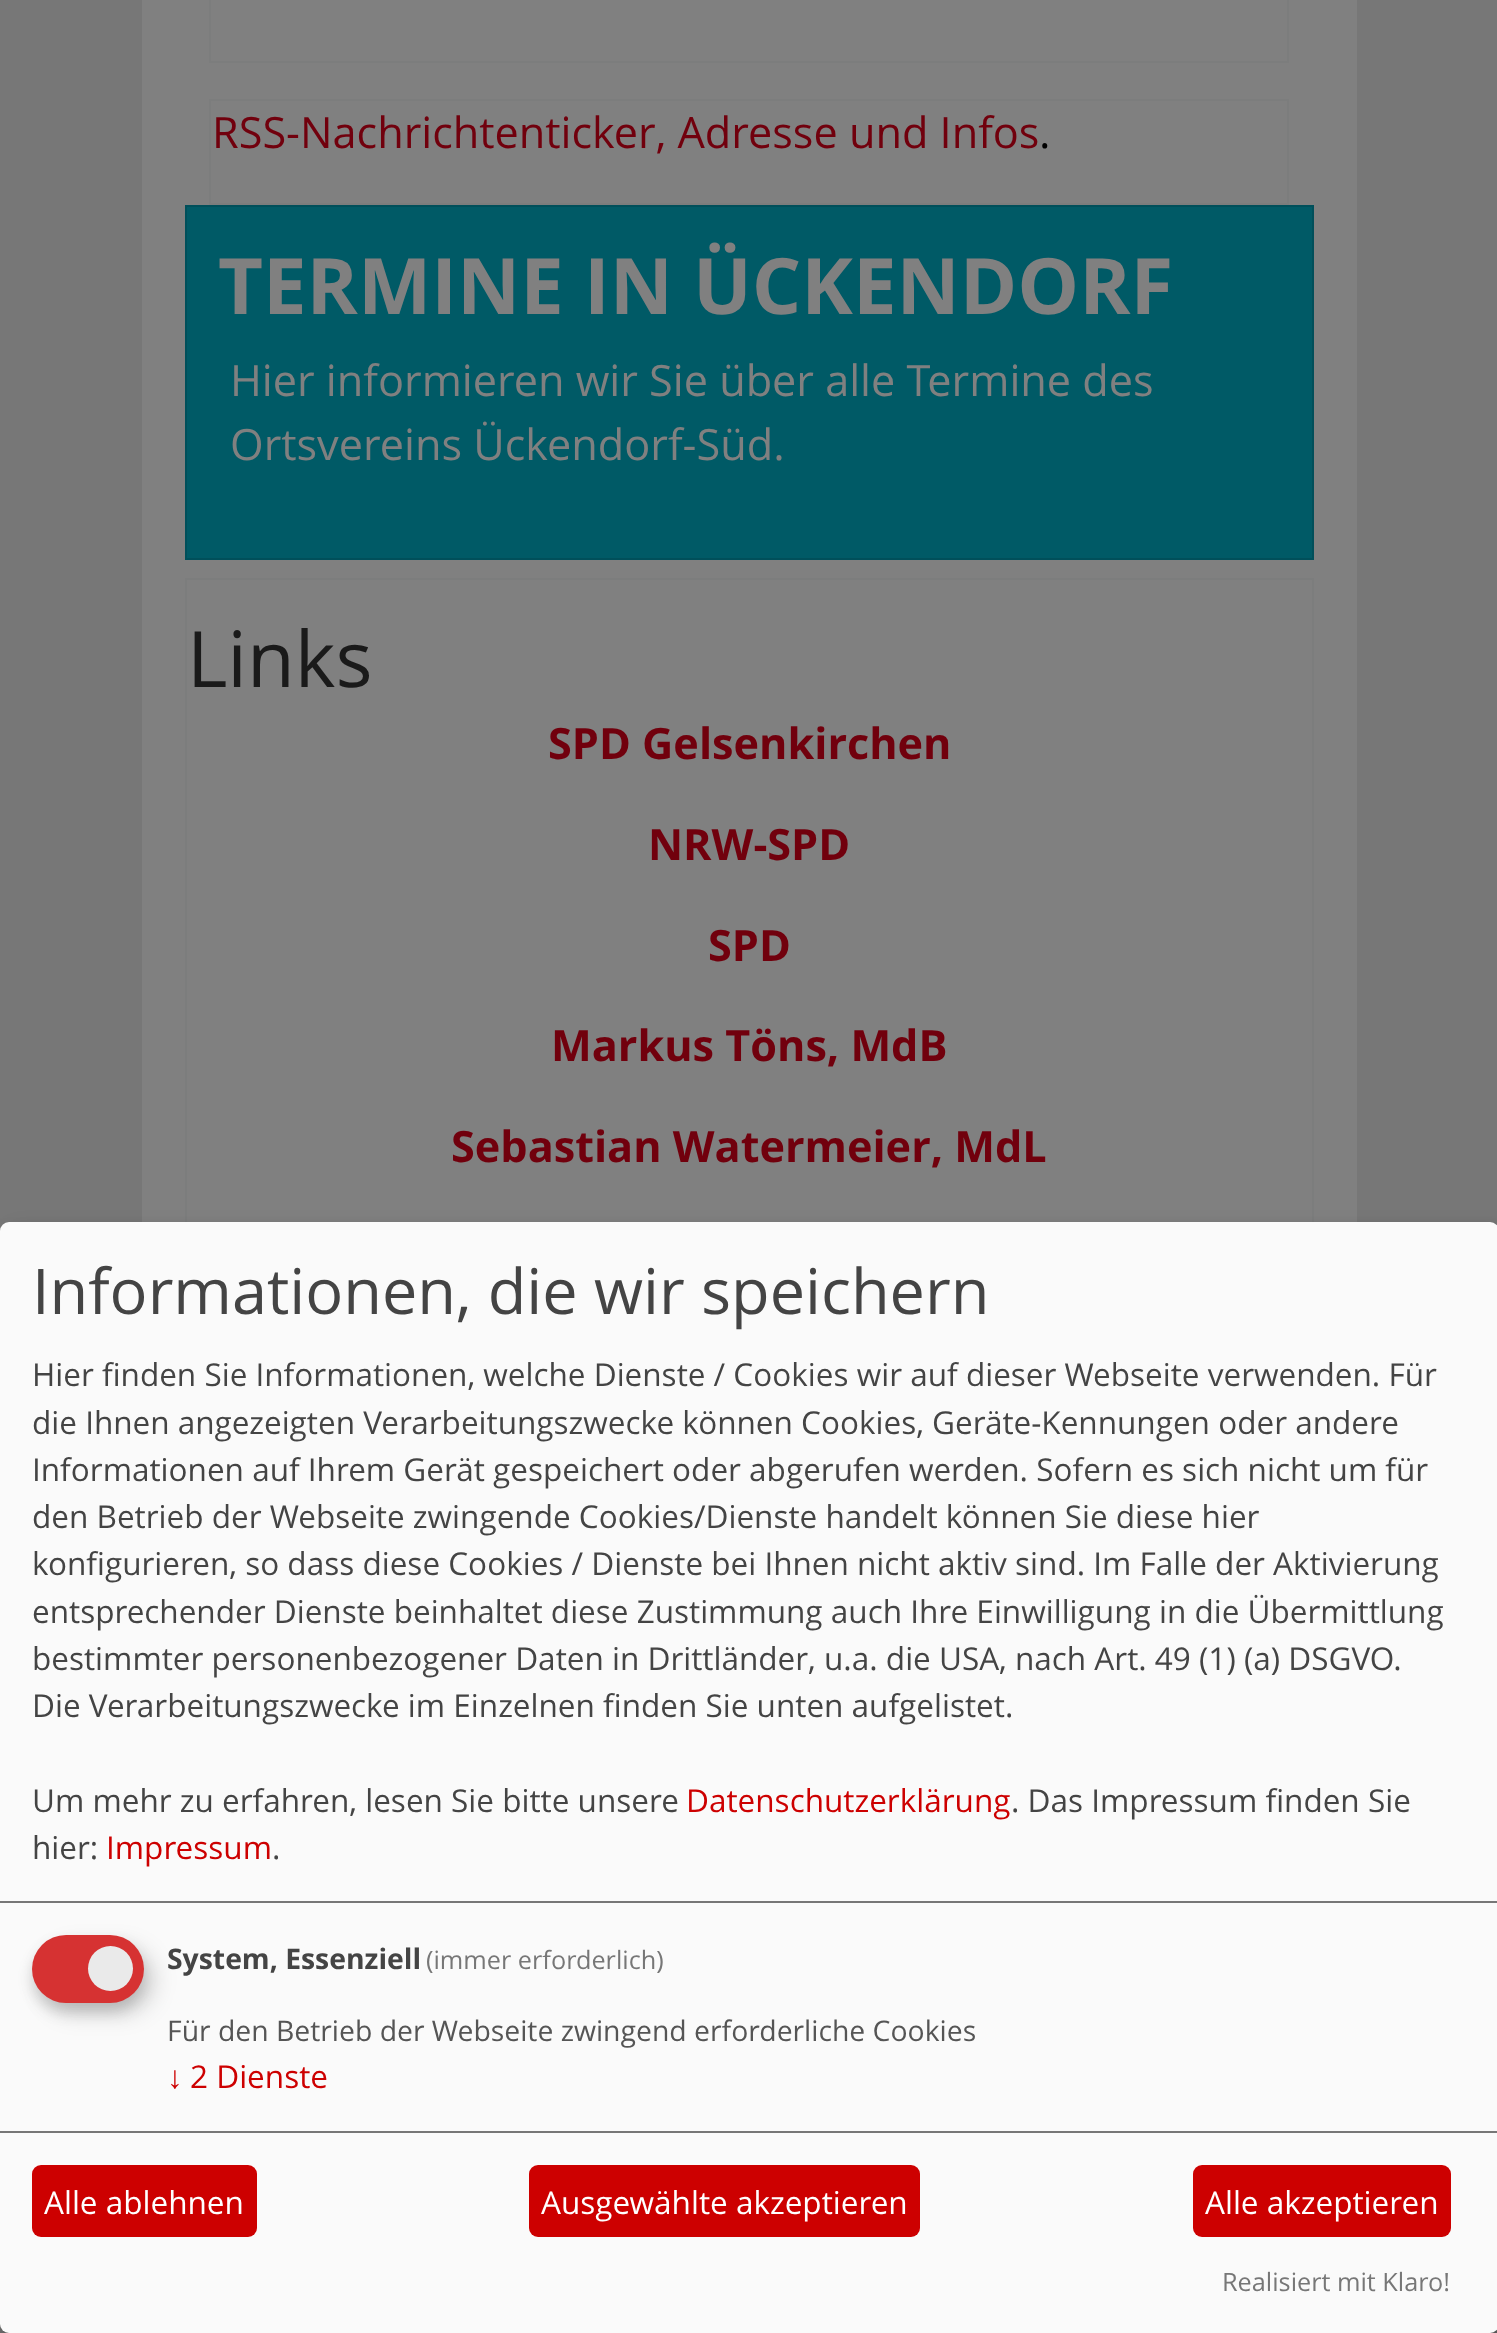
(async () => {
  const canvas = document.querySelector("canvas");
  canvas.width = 1497;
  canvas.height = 2333;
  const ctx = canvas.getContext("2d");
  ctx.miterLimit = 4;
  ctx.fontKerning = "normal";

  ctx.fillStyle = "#777777";
  ctx.fillRect(0, 0, 1497, 2333);
  ctx.fillStyle = "#808080";
  ctx.fillRect(142, 0, 1215, 1222);
  ctx.strokeStyle = "#7c7d7d";
  ctx.lineWidth = 2;
  ctx.strokeRect(210, -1, 1078, 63);
  ctx.strokeRect(210, 100, 1078, 104);
  ctx.fillStyle = "#005a66";
  ctx.beginPath();
  ctx.rect(186, 206, 1127, 353);
  ctx.fill();
  ctx.strokeStyle = "#004f5a";
  ctx.stroke();
  ctx.strokeStyle = "#7c7d7d";
  ctx.strokeRect(186, 579, 1127, 739);
  ctx.fillStyle = "rgba(0, 0, 0, 0.19)";
  ctx.filter = "blur(11px)";
  ctx.beginPath();
  ctx.roundRect(11, 1233, 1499, 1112, 9);
  ctx.fill();
  ctx.filter = "none";
  ctx.fillStyle = "rgba(0, 0, 0, 0.2)";
  ctx.filter = "blur(7px)";
  ctx.beginPath();
  ctx.roundRect(0, 1231, 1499, 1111, 9);
  ctx.fill();
  ctx.filter = "none";
  ctx.fillStyle = "#fafafa";
  ctx.beginPath();
  ctx.roundRect(0, 1222, 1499, 1111, 9);
  ctx.fill();
  ctx.fillStyle = "#777777";
  ctx.fillRect(0, 1901, 1497, 2);
  ctx.fillStyle = "rgba(0, 0, 0, 0.15)";
  ctx.filter = "blur(11px)";
  ctx.beginPath();
  ctx.roundRect(43, 1946, 112, 68, 34);
  ctx.fill();
  ctx.filter = "none";
  ctx.fillStyle = "rgba(50, 50, 50, 0.2)";
  ctx.filter = "blur(7px)";
  ctx.beginPath();
  ctx.roundRect(32, 1944, 112, 68, 34);
  ctx.fill();
  ctx.filter = "none";
  ctx.fillStyle = "#d63232";
  ctx.beginPath();
  ctx.roundRect(32, 1935, 112, 68, 34);
  ctx.fill();
  ctx.fillStyle = "#eaeaea";
  ctx.beginPath();
  ctx.arc(110.5, 1968.5, 22.5, 0, Math.PI * 2);
  ctx.fill();
  ctx.fillStyle = "#777777";
  ctx.fillRect(0, 2131, 1497, 2);
  ctx.fillStyle = "#cd0000";
  ctx.beginPath();
  ctx.roundRect(32, 2165, 225, 72, 9);
  ctx.fill();
  ctx.beginPath();
  ctx.roundRect(529, 2165, 391, 72, 9);
  ctx.fill();
  ctx.beginPath();
  ctx.roundRect(1193, 2165, 258, 72, 9);
  ctx.fill();
  ctx.font = "43.2px Open Sans";
  ctx.fillStyle = "#71000d";
  ctx.fillText("RSS-Nachrichtenticker, Adresse und Infos", 212, 148);
  ctx.fillStyle = "#000000";
  ctx.fillText(".", 1039, 148);
  ctx.font = "bold 77.75px Open Sans";
  ctx.fillStyle = "#808080";
  ctx.fillText("TERMINE IN ÜCKENDORF", 218, 314);
  ctx.font = "43.2px Open Sans";
  ctx.fillText("Hier informieren wir Sie über alle Termine des", 230, 396);
  ctx.fillText("Ortsvereins Ückendorf-Süd.", 230, 460);
  ctx.font = "77.75px Open Sans";
  ctx.fillStyle = "#1a1a1a";
  ctx.fillText("Links", 187, 687);
  ctx.font = "bold 43.2px Open Sans";
  ctx.fillStyle = "#71000d";
  for (const [text, x, y] of [
    ["SPD Gelsenkirchen", 548, 759],
    ["NRW-SPD", 648, 860],
    ["SPD", 708, 961],
    ["Markus Töns, MdB", 551, 1061],
    ["Sebastian Watermeier, MdL", 451, 1162],
  ]) {
    ctx.fillText(text, x, y);
  }
  ctx.font = "63px Open Sans";
  ctx.fillStyle = "#444444";
  ctx.fillText("Informationen, die wir speichern", 32, 1314);
  ctx.font = "31.5px Open Sans";
  for (const [text, x, y] of [
    ["Hier finden Sie Informationen, welche Dienste / Cookies wir auf dieser Webseite verwenden. Für", 32, 1386],
    ["die Ihnen angezeigten Verarbeitungszwecke können Cookies, Geräte-Kennungen oder andere", 32, 1434],
    ["Informationen auf Ihrem Gerät gespeichert oder abgerufen werden. Sofern es sich nicht um für", 32, 1481],
    ["den Betrieb der Webseite zwingende Cookies/Dienste handelt können Sie diese hier", 32, 1528],
    ["konfigurieren, so dass diese Cookies / Dienste bei Ihnen nicht aktiv sind. Im Falle der Aktivierung", 32, 1575],
    ["entsprechender Dienste beinhaltet diese Zustimmung auch Ihre Einwilligung in die Übermittlung", 32, 1623],
    ["bestimmter personenbezogener Daten in Drittländer, u.a. die USA, nach Art. 49 (1) (a) DSGVO.", 32, 1670],
    ["Die Verarbeitungszwecke im Einzelnen finden Sie unten aufgelistet.", 32, 1717],
    ["Um mehr zu erfahren, lesen Sie bitte unsere", 32, 1812],
  ]) {
    ctx.fillText(text, x, y);
  }
  ctx.fillStyle = "#cd0000";
  ctx.fillText("Datenschutzerklärung", 686, 1812);
  ctx.fillStyle = "#444444";
  ctx.fillText(". Das Impressum finden Sie", 1011, 1812);
  ctx.fillText("hier:", 32, 1859);
  ctx.fillStyle = "#cd0000";
  ctx.fillText("Impressum", 106, 1859);
  ctx.fillStyle = "#444444";
  ctx.fillText(".", 272, 1859);
  ctx.font = "bold 28.35px Open Sans";
  ctx.fillText("System, Essenziell", 167, 1969);
  ctx.font = "25.25px Open Sans";
  ctx.fillStyle = "#777777";
  ctx.fillText("(immer erforderlich)", 426, 1969);
  ctx.font = "28.35px Open Sans";
  ctx.fillStyle = "#555555";
  ctx.fillText("Für den Betrieb der Webseite zwingend erforderliche Cookies", 167, 2041);
  ctx.font = "31.5px Liberation Sans";
  ctx.fillStyle = "#cd0000";
  ctx.fillText("↓", 167, 2088);
  ctx.font = "31.5px Open Sans";
  ctx.fillText("2 Dienste", 190, 2088);
  ctx.fillStyle = "#ffffff";
  for (const [text, x, y] of [
    ["Alle ablehnen", 44, 2214],
    ["Ausgewählte akzeptieren", 541, 2214],
    ["Alle akzeptieren", 1205, 2214],
  ]) {
    ctx.fillText(text, x, y);
  }
  ctx.font = "25.25px Open Sans";
  ctx.fillStyle = "#777777";
  ctx.fillText("Realisiert mit Klaro!", 1222, 2291);
})();
